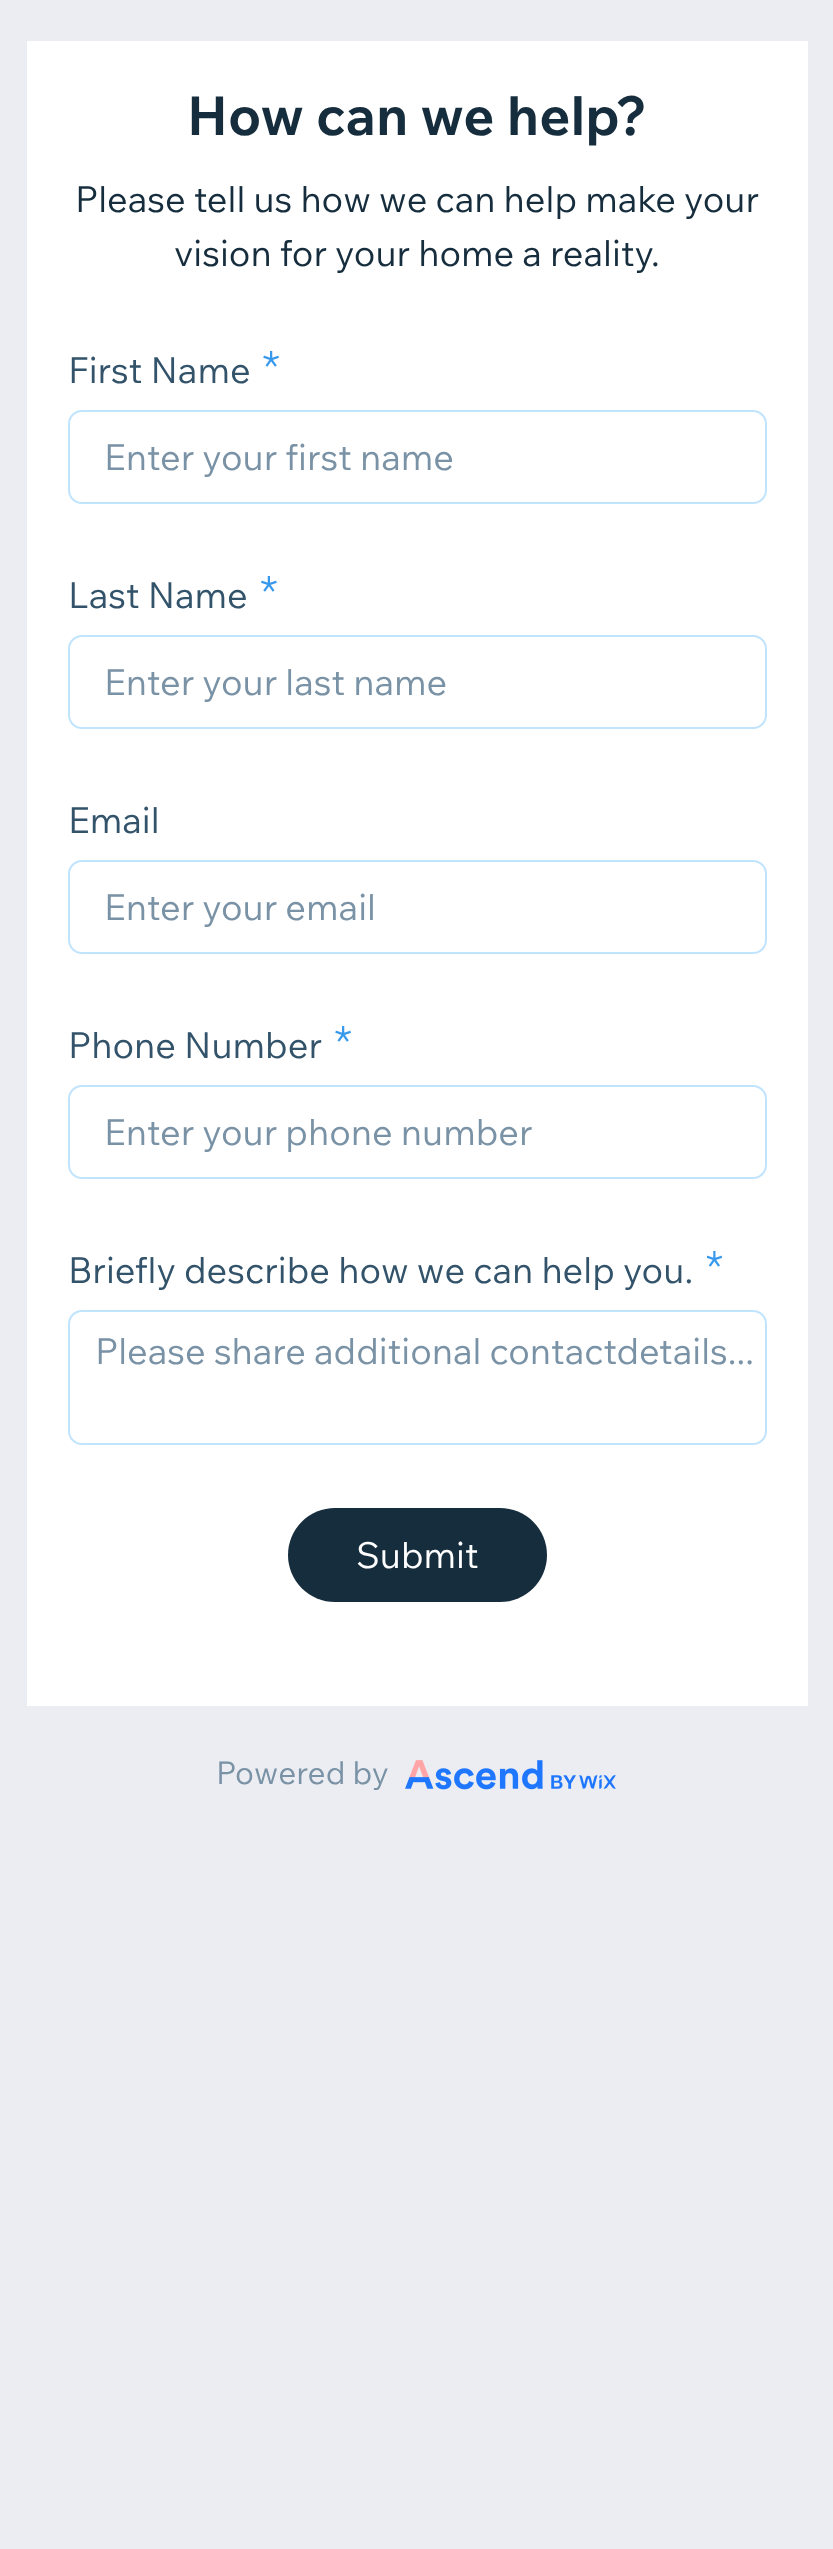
(async () => {
  const canvas = document.querySelector("canvas");
  canvas.width = 833;
  canvas.height = 2549;
  const ctx = canvas.getContext("2d");
  ctx.miterLimit = 4;
  ctx.fontKerning = "normal";
  async function loadImage(src) {
    const img = new Image();
    img.src = src;
    await img.decode();
    return img;
  }

  ctx.fillStyle = "#ecedf2";
  ctx.fillRect(0, 0, 833, 2549);
  ctx.fillStyle = "#ffffff";
  ctx.fillRect(27, 41, 781, 1665);
  ctx.drawImage(await loadImage("img/1.png"), 263, 351, 16, 16);
  ctx.beginPath();
  ctx.roundRect(69, 411, 697, 92, 13);
  ctx.strokeStyle = "#c1e4fe";
  ctx.lineWidth = 2;
  ctx.stroke();
  ctx.drawImage(await loadImage("img/2.png"), 261, 576, 16, 16);
  ctx.beginPath();
  ctx.roundRect(69, 636, 697, 92, 13);
  ctx.stroke();
  ctx.beginPath();
  ctx.roundRect(69, 861, 697, 92, 13);
  ctx.stroke();
  ctx.drawImage(await loadImage("img/1.png"), 335, 1026, 16, 16);
  ctx.beginPath();
  ctx.roundRect(69, 1086, 697, 92, 13);
  ctx.stroke();
  ctx.drawImage(await loadImage("img/3.png"), 707, 1251, 15, 16);
  ctx.beginPath();
  ctx.roundRect(69, 1311, 697, 133, 13);
  ctx.stroke();
  ctx.fillStyle = "#162d3d";
  ctx.beginPath();
  ctx.roundRect(288, 1508, 259, 94, 47);
  ctx.fill();
  ctx.drawImage(await loadImage("img/4.png"), 405, 1760, 211, 30);
  ctx.font = "bold 54px Wix Madefor Text";
  ctx.fillText("How can we help?", 187, 135);
  ctx.font = "36px Wix Madefor Text";
  ctx.fillText("Please tell us how we can help make your", 75, 212);
  ctx.fillText("vision for your home a reality.", 174, 266);
  ctx.fillStyle = "#32536a";
  ctx.fillText("First Name", 68, 383);
  ctx.fillStyle = "#7a92a5";
  ctx.fillText("Enter your first name", 104, 470);
  ctx.fillStyle = "#32536a";
  ctx.fillText("Last Name", 68, 608);
  ctx.fillStyle = "#7a92a5";
  ctx.fillText("Enter your last name", 104, 695);
  ctx.fillStyle = "#32536a";
  ctx.fillText("Email", 68, 833);
  ctx.fillStyle = "#7a92a5";
  ctx.fillText("Enter your email", 104, 920);
  ctx.fillStyle = "#32536a";
  ctx.fillText("Phone Number", 68, 1058);
  ctx.fillStyle = "#7a92a5";
  ctx.fillText("Enter your phone number", 104, 1145);
  ctx.fillStyle = "#32536a";
  ctx.fillText("Briefly describe how we can help you.", 68, 1283);
  ctx.fillStyle = "#7a92a5";
  ctx.fillText("Please share additional contactdetails...", 95, 1364);
  ctx.fillStyle = "#ffffff";
  ctx.fillText("Submit", 356, 1568);
  ctx.font = "31.5px Wix Madefor Text";
  ctx.fillStyle = "#7a92a5";
  ctx.fillText("Powered by", 216, 1784);
})();
